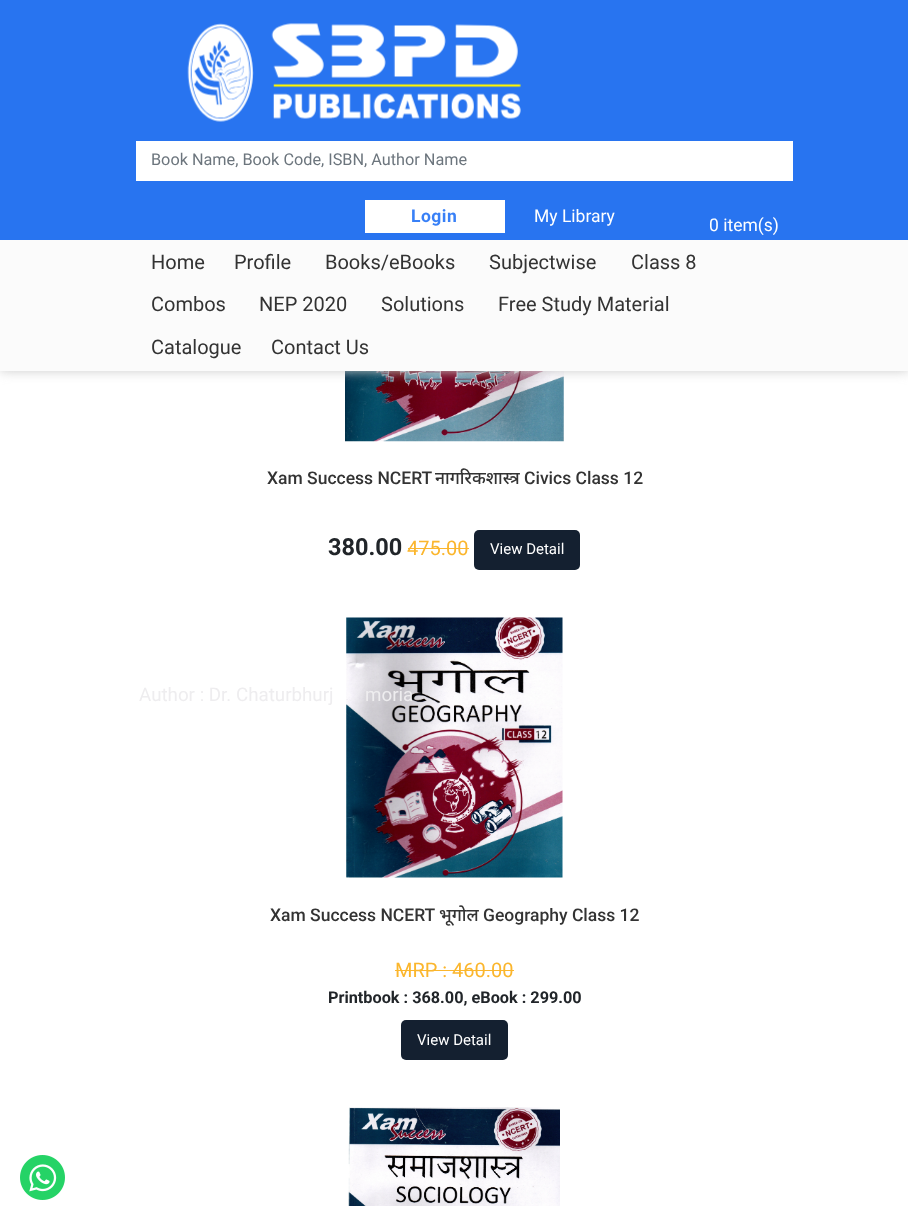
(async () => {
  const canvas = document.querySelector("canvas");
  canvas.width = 908;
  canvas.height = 1206;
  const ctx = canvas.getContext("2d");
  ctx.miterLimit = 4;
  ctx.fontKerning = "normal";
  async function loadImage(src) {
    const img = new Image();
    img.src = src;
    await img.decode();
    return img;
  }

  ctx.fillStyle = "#ffffff";
  ctx.fillRect(0, 0, 908, 1206);
  ctx.drawImage(await loadImage("img/2.png"), 345, 371, 219, 71);
  ctx.fillStyle = "#cccccc";
  ctx.filter = "blur(6px)";
  ctx.beginPath();
  ctx.rect(0, 0, 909, 371);
  ctx.fill();
  ctx.filter = "none";
  ctx.fillStyle = "#2874f0";
  ctx.fillRect(0, 0, 908, 240);
  ctx.drawImage(await loadImage("img/1.png"), 187, 23, 334, 99);
  for (const [x, y, w, h, color] of [
    [136, 141, 657, 40, "#ffffff"],
    [365, 200, 140, 33, "#ffffff"],
    [0, 240, 908, 131, "#fbfbfb"],
    [408, 548, 61, 1, "#fbb62d"],
  ]) {
    ctx.fillStyle = color;
    ctx.fillRect(x, y, w, h);
  }
  ctx.fillStyle = "#142030";
  ctx.beginPath();
  ctx.roundRect(474, 530, 106, 40, 5);
  ctx.fill();
  ctx.drawImage(await loadImage("img/3.png"), 346, 617, 217, 261);
  ctx.fillStyle = "#fbb62d";
  ctx.fillRect(395, 970, 58, 1);
  ctx.fillRect(453, 970, 61, 1);
  ctx.fillStyle = "#142030";
  ctx.beginPath();
  ctx.roundRect(401, 1020, 107, 40, 5);
  ctx.fill();
  ctx.drawImage(await loadImage("img/4.png"), 348, 1107, 212, 99);
  ctx.drawImage(await loadImage("img/5.png"), 20, 1155, 45, 45);
  ctx.font = "16.25px Roboto";
  ctx.fillStyle = "#6c757d";
  ctx.fillText("Book Name, Book Code, ISBN, Author Name", 151, 165);
  ctx.letterSpacing = "0.5px";
  ctx.font = "bold 17.5px Roboto";
  ctx.fillStyle = "#3880f7";
  ctx.fillText("Login", 411, 222);
  ctx.letterSpacing = "0px";
  ctx.font = "17.5px Roboto";
  ctx.fillStyle = "#ffffff";
  ctx.fillText("My Library", 534, 222);
  ctx.fillText("0 item(s)", 709, 231);
  ctx.font = "20px Roboto";
  ctx.fillStyle = "#333333";
  for (const [text, x, y] of [
    ["Home", 151, 269],
    ["Profile", 234, 269],
    ["Books/eBooks", 325, 269],
    ["Subjectwise", 489, 269],
    ["Class 8", 631, 269],
    ["Combos", 151, 311],
    ["NEP 2020", 259, 311],
    ["Solutions", 381, 311],
    ["Free Study Material", 498, 311],
    ["Catalogue", 151, 354],
    ["Contact Us", 271, 354],
  ]) {
    ctx.fillText(text, x, y);
  }
  ctx.font = "500 17.5px Roboto";
  ctx.fillText("Xam Success NCERT", 267, 484);
  ctx.font = "500 17.5px Noto Sans";
  ctx.fillText("नागरिकशास्त्र", 435, 484);
  ctx.font = "500 17.5px Roboto";
  ctx.fillText("Civics Class 12", 524, 484);
  ctx.font = "bold 23.5px Roboto";
  ctx.fillStyle = "#212529";
  ctx.fillText("380.00", 328, 555);
  ctx.font = "20px Roboto";
  ctx.fillStyle = "#fbb62d";
  ctx.fillText("475.00", 407, 555);
  ctx.font = "15px Roboto";
  ctx.fillStyle = "#ffffff";
  ctx.fillText("View Detail", 490, 554);
  ctx.font = "18.75px Roboto";
  ctx.fillStyle = "#eeedef";
  ctx.fillText("Author : Dr. Chaturbhurj", 139, 701);
  ctx.fillText("moria", 365, 701);
  ctx.font = "500 17.5px Roboto";
  ctx.fillStyle = "#333333";
  ctx.fillText("Xam Success NCERT", 270, 921);
  ctx.font = "500 17.5px Noto Sans";
  ctx.fillText("भूगोल", 439, 921);
  ctx.font = "500 17.5px Roboto";
  ctx.fillText("Geography Class 12", 483, 921);
  ctx.font = "20px Roboto";
  ctx.fillStyle = "#fbb62d";
  ctx.fillText("MRP :", 395, 977);
  ctx.fillText("460.00", 452, 977);
  ctx.font = "bold 16.25px Roboto";
  ctx.fillStyle = "#212529";
  ctx.fillText("Printbook : 368.00, eBook : 299.00", 328, 1003);
  ctx.font = "15px Roboto";
  ctx.fillStyle = "#ffffff";
  ctx.fillText("View Detail", 417, 1045);
})();
